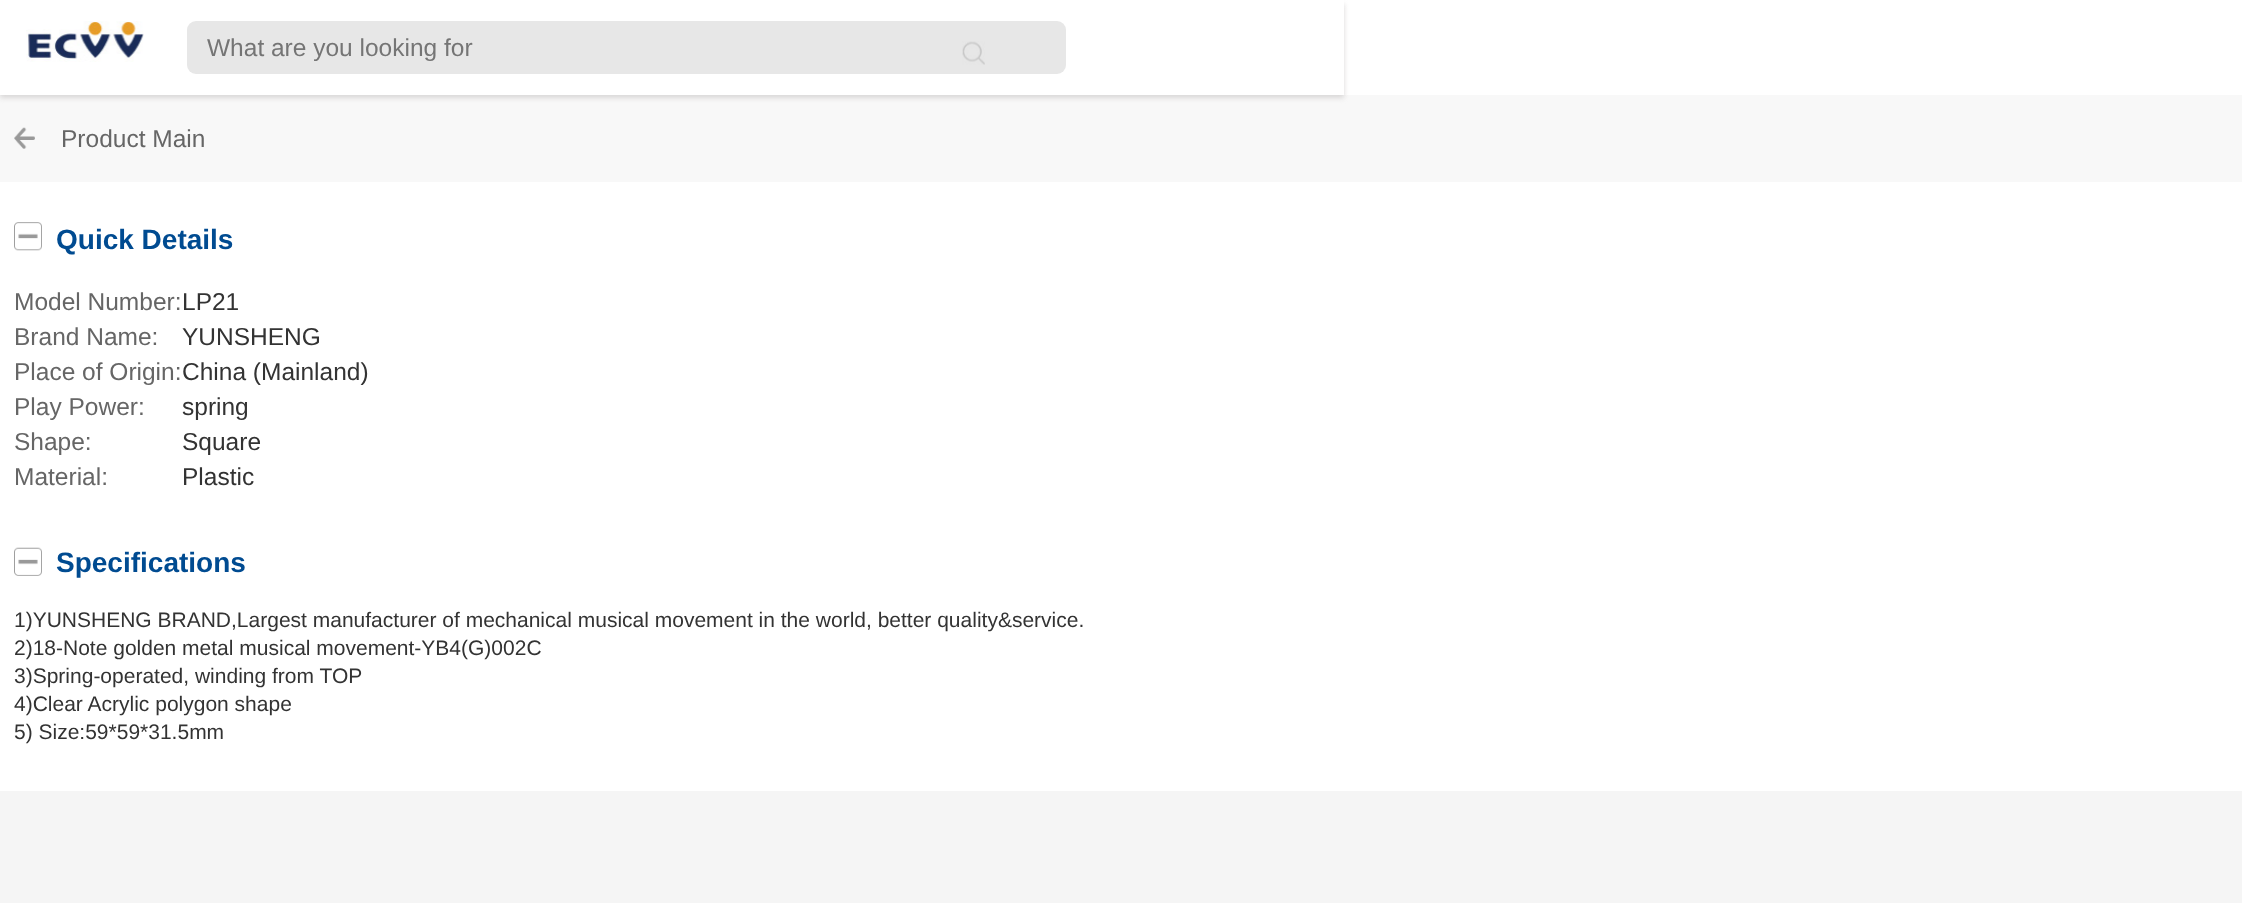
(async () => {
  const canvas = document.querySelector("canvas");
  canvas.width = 2242;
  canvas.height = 903;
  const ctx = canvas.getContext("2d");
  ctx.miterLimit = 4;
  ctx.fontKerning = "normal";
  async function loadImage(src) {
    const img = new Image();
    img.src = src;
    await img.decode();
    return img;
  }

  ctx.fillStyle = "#f5f5f5";
  ctx.fillRect(0, 0, 2242, 903);
  ctx.fillStyle = "#ffffff";
  ctx.fillRect(0, 0, 2242, 791);
  ctx.fillStyle = "#f8f8f8";
  ctx.fillRect(0, 95, 2242, 87);
  ctx.fillStyle = "#d9d7d7";
  ctx.filter = "blur(2.5px)";
  ctx.beginPath();
  ctx.rect(0, 4, 1344, 94);
  ctx.fill();
  ctx.filter = "none";
  ctx.fillStyle = "#ffffff";
  ctx.fillRect(0, 0, 1344, 95);
  ctx.drawImage(await loadImage("img/1.png"), 26, 21, 118, 41);
  ctx.fillStyle = "#e7e7e7";
  ctx.beginPath();
  ctx.roundRect(187, 21, 879, 53, 9);
  ctx.fill();
  ctx.drawImage(await loadImage("img/2.png"), 962, 41, 23, 24);
  ctx.drawImage(await loadImage("img/3.png"), 14, 127, 21, 22);
  ctx.drawImage(await loadImage("img/4.png"), 14, 222, 28, 29);
  ctx.drawImage(await loadImage("img/5.png"), 14, 547, 28, 29);
  ctx.font = "24.5px Liberation Sans";
  ctx.fillStyle = "#757575";
  ctx.fillText("What are you looking for", 207, 56);
  ctx.fillStyle = "#666666";
  ctx.fillText("Product Main", 61, 147);
  ctx.font = "bold 28px Liberation Sans";
  ctx.fillStyle = "#004b91";
  ctx.fillText("Quick Details", 56, 249);
  ctx.font = "24.5px Liberation Sans";
  ctx.fillStyle = "#666666";
  ctx.fillText("Model Number:", 14, 310);
  ctx.fillStyle = "#333333";
  ctx.fillText("LP21", 182, 310);
  ctx.fillStyle = "#666666";
  ctx.fillText("Brand Name:", 14, 345);
  ctx.fillStyle = "#333333";
  ctx.fillText("YUNSHENG", 182, 345);
  ctx.fillStyle = "#666666";
  ctx.fillText("Place of Origin:", 14, 380);
  ctx.fillStyle = "#333333";
  ctx.fillText("China (Mainland)", 182, 380);
  ctx.fillStyle = "#666666";
  ctx.fillText("Play Power:", 14, 415);
  ctx.fillStyle = "#333333";
  ctx.fillText("spring", 182, 415);
  ctx.fillStyle = "#666666";
  ctx.fillText("Shape:", 14, 450);
  ctx.fillStyle = "#333333";
  ctx.fillText("Square", 182, 450);
  ctx.fillStyle = "#666666";
  ctx.fillText("Material:", 14, 485);
  ctx.fillStyle = "#333333";
  ctx.fillText("Plastic", 182, 485);
  ctx.font = "bold 28px Liberation Sans";
  ctx.fillStyle = "#004b91";
  ctx.fillText("Specifications", 56, 572);
  ctx.font = "21px Liberation Sans";
  ctx.fillStyle = "#333333";
  for (const [text, x, y] of [
    ["1)YUNSHENG BRAND,Largest manufacturer of mechanical musical movement in the world, better quality&service.", 14, 627],
    ["2)18-Note golden metal musical movement-YB4(G)002C", 14, 655],
    ["3)Spring-operated, winding from TOP", 14, 683],
    ["4)Clear Acrylic polygon shape", 14, 711],
    ["5) Size:59*59*31.5mm", 14, 739],
  ]) {
    ctx.fillText(text, x, y);
  }
})();
